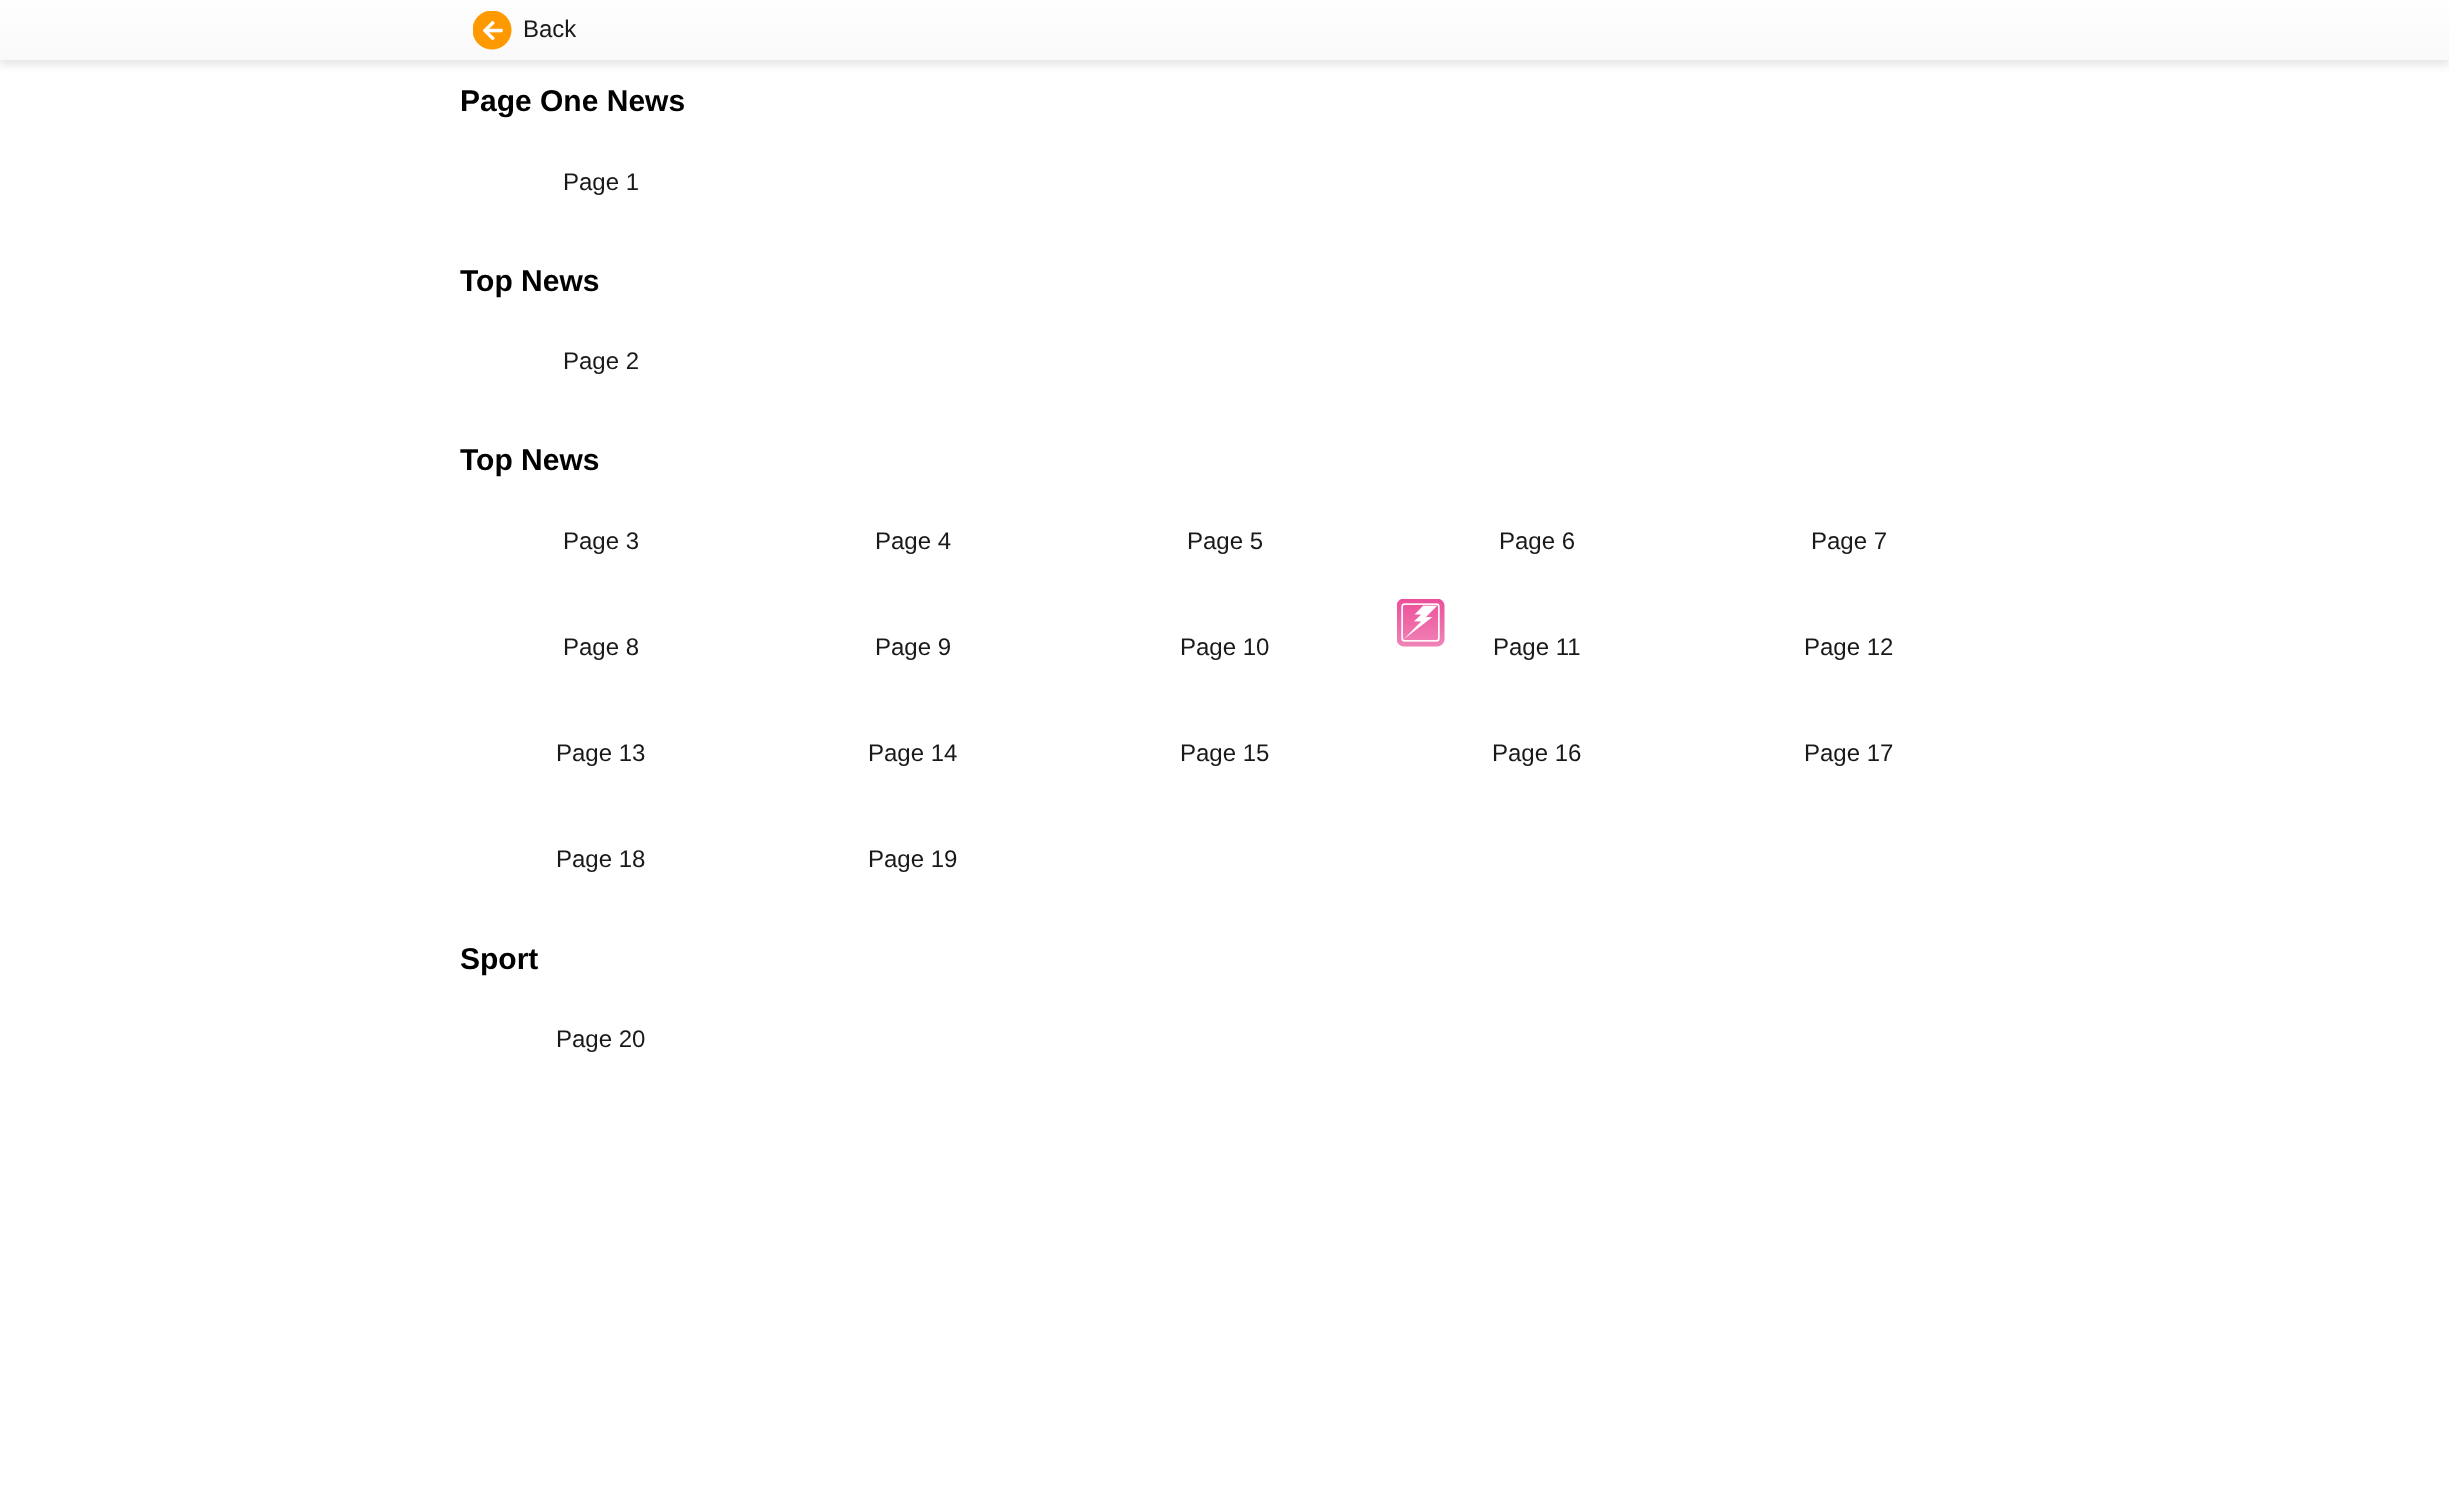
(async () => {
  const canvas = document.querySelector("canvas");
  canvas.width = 2449;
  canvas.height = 1511;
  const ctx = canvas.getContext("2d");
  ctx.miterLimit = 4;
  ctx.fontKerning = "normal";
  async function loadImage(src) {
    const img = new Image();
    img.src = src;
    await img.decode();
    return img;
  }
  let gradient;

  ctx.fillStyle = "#ffffff";
  ctx.fillRect(0, 0, 2449, 1511);
  ctx.fillStyle = "rgba(0, 0, 0, 0.1)";
  ctx.filter = "blur(4.5px)";
  ctx.beginPath();
  ctx.rect(0, 5, 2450, 60);
  ctx.fill();
  ctx.filter = "none";
  gradient = ctx.createLinearGradient(1225, 0, 1225, 60);
  gradient.addColorStop(0, "#fefefe");
  gradient.addColorStop(1, "#f9f9f9");
  ctx.fillStyle = gradient;
  ctx.fillRect(0, 0, 2449, 60);
  ctx.drawImage(await loadImage("img/1.png"), 473, 11, 39, 39);
  ctx.drawImage(await loadImage("img/2.png"), 1397, 599, 48, 48);
  ctx.font = "24px Liberation Sans";
  ctx.fillStyle = "#191919";
  ctx.fillText("Back", 523, 37);
  ctx.font = "bold 30px Liberation Sans";
  ctx.fillStyle = "#000000";
  ctx.fillText("Page One News", 460, 111);
  ctx.font = "24px Liberation Sans";
  ctx.fillStyle = "#191919";
  ctx.fillText("Page 1", 563, 190);
  ctx.font = "bold 30px Liberation Sans";
  ctx.fillStyle = "#000000";
  ctx.fillText("Top News", 460, 291);
  ctx.font = "24px Liberation Sans";
  ctx.fillStyle = "#191919";
  ctx.fillText("Page 2", 563, 369);
  ctx.font = "bold 30px Liberation Sans";
  ctx.fillStyle = "#000000";
  ctx.fillText("Top News", 460, 470);
  ctx.font = "24px Liberation Sans";
  ctx.fillStyle = "#191919";
  for (const [text, x, y] of [
    ["Page 3", 563, 549],
    ["Page 4", 875, 549],
    ["Page 5", 1187, 549],
    ["Page 6", 1499, 549],
    ["Page 7", 1811, 549],
    ["Page 8", 563, 655],
    ["Page 9", 875, 655],
    ["Page 10", 1180, 655],
    ["Page 11", 1493, 655],
    ["Page 12", 1804, 655],
    ["Page 13", 556, 761],
    ["Page 14", 868, 761],
    ["Page 15", 1180, 761],
    ["Page 16", 1492, 761],
    ["Page 17", 1804, 761],
    ["Page 18", 556, 867],
    ["Page 19", 868, 867],
  ]) {
    ctx.fillText(text, x, y);
  }
  ctx.font = "bold 30px Liberation Sans";
  ctx.fillStyle = "#000000";
  ctx.fillText("Sport", 460, 969);
  ctx.font = "24px Liberation Sans";
  ctx.fillStyle = "#191919";
  ctx.fillText("Page 20", 556, 1047);
})();
